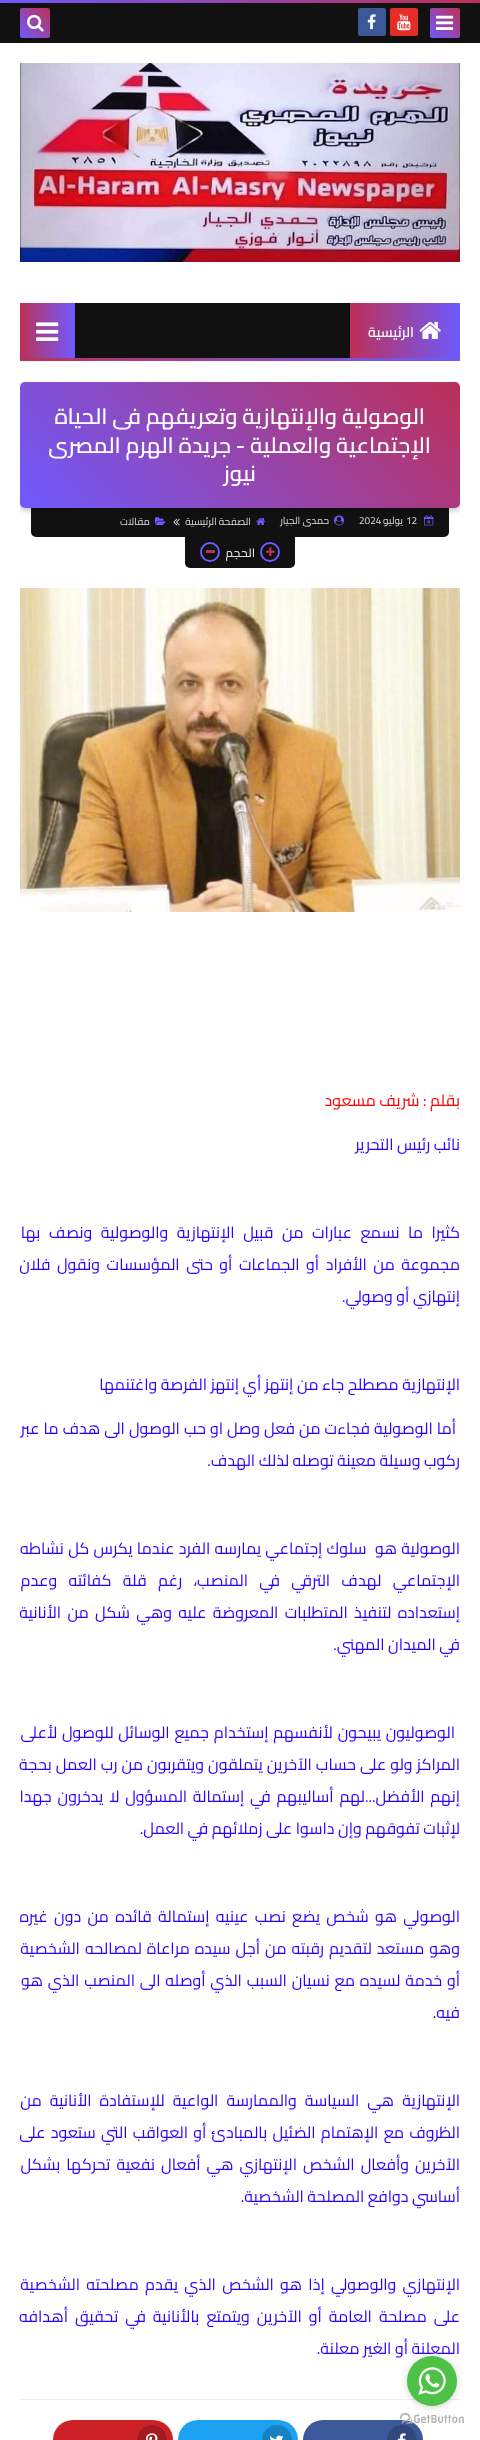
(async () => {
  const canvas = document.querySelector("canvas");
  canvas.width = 480;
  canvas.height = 2440;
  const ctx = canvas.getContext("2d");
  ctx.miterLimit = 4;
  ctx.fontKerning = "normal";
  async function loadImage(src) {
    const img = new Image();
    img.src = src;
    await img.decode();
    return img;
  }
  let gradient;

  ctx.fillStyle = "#ffffff";
  ctx.fillRect(0, 0, 480, 2440);
  gradient = ctx.createLinearGradient(119, 122, 361, -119);
  gradient.addColorStop(0, "#6e5aff");
  gradient.addColorStop(1, "#bd3057");
  ctx.fillStyle = gradient;
  ctx.fillRect(0, 0, 480, 3);
  ctx.fillStyle = "#111111";
  ctx.fillRect(0, 3, 480, 40);
  gradient = ctx.createLinearGradient(430, 38, 460, 8);
  gradient.addColorStop(0, "#6e5aff");
  gradient.addColorStop(1, "#bd3057");
  ctx.fillStyle = gradient;
  ctx.beginPath();
  ctx.roundRect(430, 8, 30, 30, 2);
  ctx.fill();
  ctx.drawImage(await loadImage("img/1.png"), 436, 15, 18, 15);
  ctx.fillStyle = "#e52d27";
  ctx.beginPath();
  ctx.roundRect(390, 8, 28, 28, 2);
  ctx.fill();
  ctx.drawImage(await loadImage("img/2.png"), 397, 14, 14, 17);
  ctx.fillStyle = "#3b5998";
  ctx.beginPath();
  ctx.roundRect(358, 8, 28, 28, 2);
  ctx.fill();
  ctx.drawImage(await loadImage("img/3.png"), 367, 14, 9, 16);
  gradient = ctx.createLinearGradient(20, 38, 50, 8);
  gradient.addColorStop(0, "#6e5aff");
  gradient.addColorStop(1, "#bd3057");
  ctx.fillStyle = gradient;
  ctx.beginPath();
  ctx.roundRect(20, 8, 30, 30, 2);
  ctx.fill();
  ctx.drawImage(await loadImage("img/4.png"), 27, 14, 17, 18);
  ctx.drawImage(await loadImage("img/5.png"), 20, 63, 440, 199);
  ctx.fillStyle = "#111111";
  ctx.fillRect(75, 303, 275, 55);
  gradient = ctx.createLinearGradient(460, 331, 350, 331);
  gradient.addColorStop(0, "#6e5aff");
  gradient.addColorStop(1, "#bd3057");
  ctx.fillStyle = gradient;
  ctx.fillRect(350, 303, 110, 55);
  ctx.drawImage(await loadImage("img/6.png"), 419, 321, 22, 18);
  gradient = ctx.createLinearGradient(75, 331, 20, 331);
  gradient.addColorStop(0, "#6e5aff");
  gradient.addColorStop(1, "#bd3057");
  ctx.fillStyle = gradient;
  ctx.fillRect(20, 303, 55, 55);
  ctx.drawImage(await loadImage("img/7.png"), 36, 322, 23, 19);
  gradient = ctx.createLinearGradient(460, 360, 20, 360);
  gradient.addColorStop(0, "#6e5aff");
  gradient.addColorStop(1, "#bd3057");
  ctx.fillStyle = gradient;
  ctx.fillRect(20, 358, 440, 3);
  ctx.fillStyle = "#111111";
  ctx.beginPath();
  ctx.roundRect(31, 505, 418, 32, [0, 0, 5, 5]);
  ctx.fill();
  ctx.drawImage(await loadImage("img/8.png"), 424, 515, 10, 11);
  ctx.drawImage(await loadImage("img/9.png"), 334, 515, 10, 11);
  ctx.save();
  ctx.beginPath();
  ctx.rect(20, 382, 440, 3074);
  ctx.clip();
  ctx.fillStyle = "rgba(0, 0, 0, 0.2)";
  ctx.filter = "blur(2.5px)";
  ctx.beginPath();
  ctx.roundRect(20, 385, 440, 126, 5);
  ctx.fill();
  ctx.filter = "none";
  ctx.restore();
  gradient = ctx.createLinearGradient(99, 587, 382, 304);
  gradient.addColorStop(0, "#6e5aff");
  gradient.addColorStop(1, "#bd3057");
  ctx.fillStyle = gradient;
  ctx.beginPath();
  ctx.roundRect(20, 382, 440, 126, 5);
  ctx.fill();
  ctx.drawImage(await loadImage("img/10.png"), 256, 517, 10, 8);
  ctx.drawImage(await loadImage("img/11.png"), 173, 518, 7, 8);
  ctx.drawImage(await loadImage("img/12.png"), 155, 517, 11, 8);
  ctx.fillStyle = "#111111";
  ctx.beginPath();
  ctx.roundRect(185, 537, 110, 31, [0, 0, 5, 5]);
  ctx.fill();
  ctx.beginPath();
  ctx.arc(270, 552, 9, 0, Math.PI * 2);
  ctx.strokeStyle = "#6e5aff";
  ctx.lineWidth = 2;
  ctx.stroke();
  ctx.drawImage(await loadImage("img/13.png"), 266, 547, 9, 9);
  ctx.beginPath();
  ctx.arc(210, 552, 9, 0, Math.PI * 2);
  ctx.stroke();
  ctx.fillStyle = "#bd3057";
  ctx.fillRect(206, 550, 9, 3);
  ctx.drawImage(await loadImage("img/14.png"), 20, 588, 440, 324);
  ctx.fillStyle = "#eeeeee";
  ctx.fillRect(20, 2399, 440, 1);
  ctx.fillStyle = "#3b5998";
  ctx.beginPath();
  ctx.roundRect(303, 2420, 120, 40, 20);
  ctx.fill();
  ctx.fillStyle = "#2f477a";
  ctx.beginPath();
  ctx.arc(402, 2440, 15, 0, Math.PI * 2);
  ctx.fill();
  ctx.drawImage(await loadImage("img/15.png"), 397, 2433, 9, 7);
  ctx.fillStyle = "#1da1f2";
  ctx.beginPath();
  ctx.roundRect(178, 2420, 120, 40, 20);
  ctx.fill();
  ctx.fillStyle = "#1781c2";
  ctx.beginPath();
  ctx.arc(277, 2440, 15, 0, Math.PI * 2);
  ctx.fill();
  ctx.drawImage(await loadImage("img/16.png"), 270, 2435, 14, 5);
  ctx.fillStyle = "#cc2127";
  ctx.beginPath();
  ctx.roundRect(53, 2420, 120, 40, 20);
  ctx.fill();
  ctx.fillStyle = "#a31a1f";
  ctx.beginPath();
  ctx.arc(152, 2440, 15, 0, Math.PI * 2);
  ctx.fill();
  ctx.drawImage(await loadImage("img/17.png"), 146, 2433, 12, 7);
  ctx.drawImage(await loadImage("img/19.png"), 400, 2413, 64, 11);
  ctx.fillStyle = "rgba(136, 136, 136, 0.4)";
  ctx.filter = "blur(3.5px)";
  ctx.beginPath();
  ctx.roundRect(407, 2357, 50, 50, 25);
  ctx.fill();
  ctx.filter = "none";
  ctx.direction = "rtl";
  ctx.font = "600 14px Cairo";
  ctx.fillStyle = "#ffffff";
  ctx.fillText("الرئيسية", 414, 337);
  ctx.font = "600 22px Cairo";
  for (const [text, x, y] of [
    ["الوصولية والإنتهازية وتعريفهم فى الحياة", 425, 424],
    ["الإجتماعية والعملية - جريدة الهرم المصرى", 431, 453],
    ["نيوز", 256, 481],
  ]) {
    ctx.fillText(text, x, y);
  }
  ctx.direction = "ltr";
  ctx.font = "10px Cairo";
  ctx.fillStyle = "#dddddd";
  ctx.fillText("12", 406, 524);
  ctx.direction = "rtl";
  ctx.fillText("يوليو", 403, 524);
  ctx.direction = "ltr";
  ctx.fillText("2024", 359, 524);
  ctx.direction = "rtl";
  for (const [text, x, y] of [
    ["حمدى الجيار", 329, 524],
    ["الصفحة الرئيسية", 251, 525],
    ["مقالات", 150, 525],
  ]) {
    ctx.fillText(text, x, y);
  }
  ctx.font = "600 12px Cairo";
  ctx.fillText("الحجم", 255, 557);
  ctx.font = "16px Cairo";
  ctx.fillStyle = "#ff0000";
  ctx.fillText("بقلم : شريف مسعود", 460, 1106);
  ctx.fillStyle = "#2b00fe";
  ctx.fillText("نائب رئيس التحرير", 460, 1150);
  ctx.wordSpacing = "5px";
  ctx.fillText("كثيرا ما نسمع عبارات من قبيل الإنتهازية والوصولية ونصف بها", 460, 1238);
  ctx.wordSpacing = "3px";
  ctx.fillText("مجموعة من الأفراد أو الجماعات أو حتى المؤسسات ونقول فلان", 460, 1270);
  ctx.wordSpacing = "0px";
  ctx.fillText("إنتهازي أو وصولي.", 460, 1302);
  ctx.fillText("الإنتهازية مصطلح جاء من إنتهز أي إنتهز الفرصة واغتنمها", 460, 1390);
  ctx.wordSpacing = "0.5px";
  ctx.fillText("أما الوصولية فجاءت من فعل وصل او حب الوصول الى هدف ما عبر", 456, 1434);
  ctx.wordSpacing = "0px";
  ctx.fillText("ركوب وسيلة معينة توصله لذلك الهدف.", 460, 1466);
  ctx.wordSpacing = "0.75px";
  ctx.fillText("الوصولية هو  سلوك إجتماعي يمارسه الفرد عندما يكرس كل نشاطه", 460, 1554);
  ctx.wordSpacing = "7.75px";
  ctx.fillText("الإجتماعي لهدف الترقي في المنصب، رغم قلة كفائته وعدم", 460, 1586);
  ctx.wordSpacing = "2.75px";
  ctx.fillText("إستعداده لتنفيذ المتطلبات المعروضة عليه وهي شكل من الأنانية", 460, 1618);
  ctx.wordSpacing = "0px";
  ctx.fillText("في الميدان المهني.", 460, 1650);
  ctx.wordSpacing = "1.25px";
  ctx.fillText("الوصوليون يبيحون لأنفسهم إستخدام جميع الوسائل للوصول لأعلى", 455, 1738);
  ctx.wordSpacing = "0.5px";
  ctx.fillText("المراكز ولو على حساب الآخرين يتملقون ويتقربون من رب العمل بحجة", 460, 1770);
  ctx.wordSpacing = "2.25px";
  ctx.fillText("إنهم الأفضل...لهم أساليبهم في إستمالة المسؤول لا يدخرون جهدا", 460, 1802);
  ctx.wordSpacing = "0px";
  ctx.fillText("لإثبات تفوقهم وإن داسوا على زملائهم في العمل.", 460, 1834);
  ctx.wordSpacing = "2.75px";
  ctx.fillText("الوصولي هو شخص يضع نصب عينيه إستمالة قائده من دون غيره", 460, 1922);
  ctx.wordSpacing = "1.5px";
  ctx.fillText("وهو مستعد لتقديم رقبته من أجل سيده مراعاة لمصالحه الشخصية", 460, 1954);
  ctx.wordSpacing = "1.25px";
  ctx.fillText("أو خدمة لسيده مع نسيان السبب الذي أوصله الى المنصب الذي هو", 460, 1986);
  ctx.wordSpacing = "0px";
  ctx.fillText("فيه.", 460, 2018);
  ctx.wordSpacing = "4.5px";
  ctx.fillText("الإنتهازية هي السياسة والممارسة الواعية للإستفادة الأنانية من", 460, 2106);
  ctx.wordSpacing = "1.75px";
  ctx.fillText("الظروف مع الإهتمام الضئيل بالمبادئ أو العواقب التي ستعود على", 460, 2138);
  ctx.wordSpacing = "2.5px";
  ctx.fillText("الآخرين وأفعال الشخص الإنتهازي هي أفعال نفعية تحركها بشكل", 460, 2170);
  ctx.wordSpacing = "0px";
  ctx.fillText("أساسي دوافع المصلحة الشخصية.", 460, 2202);
  ctx.wordSpacing = "2.75px";
  ctx.fillText("الإنتهازي والوصولي إذا هو الشخص الذي يقدم مصلحته الشخصية", 460, 2290);
  ctx.wordSpacing = "3.5px";
  ctx.fillText("على مصلحة العامة أو الآخرين ويتمتع بالأنانية في تحقيق أهدافه", 460, 2322);
  ctx.wordSpacing = "0px";
  ctx.fillText("المعلنة أو الغير معلنة.", 460, 2354);
  ctx.fillStyle = "#4dc247";
  ctx.beginPath();
  ctx.arc(432, 2381, 25, 0, Math.PI * 2);
  ctx.fill();
  ctx.drawImage(await loadImage("img/18.png"), 418, 2367, 28, 28);
})();
